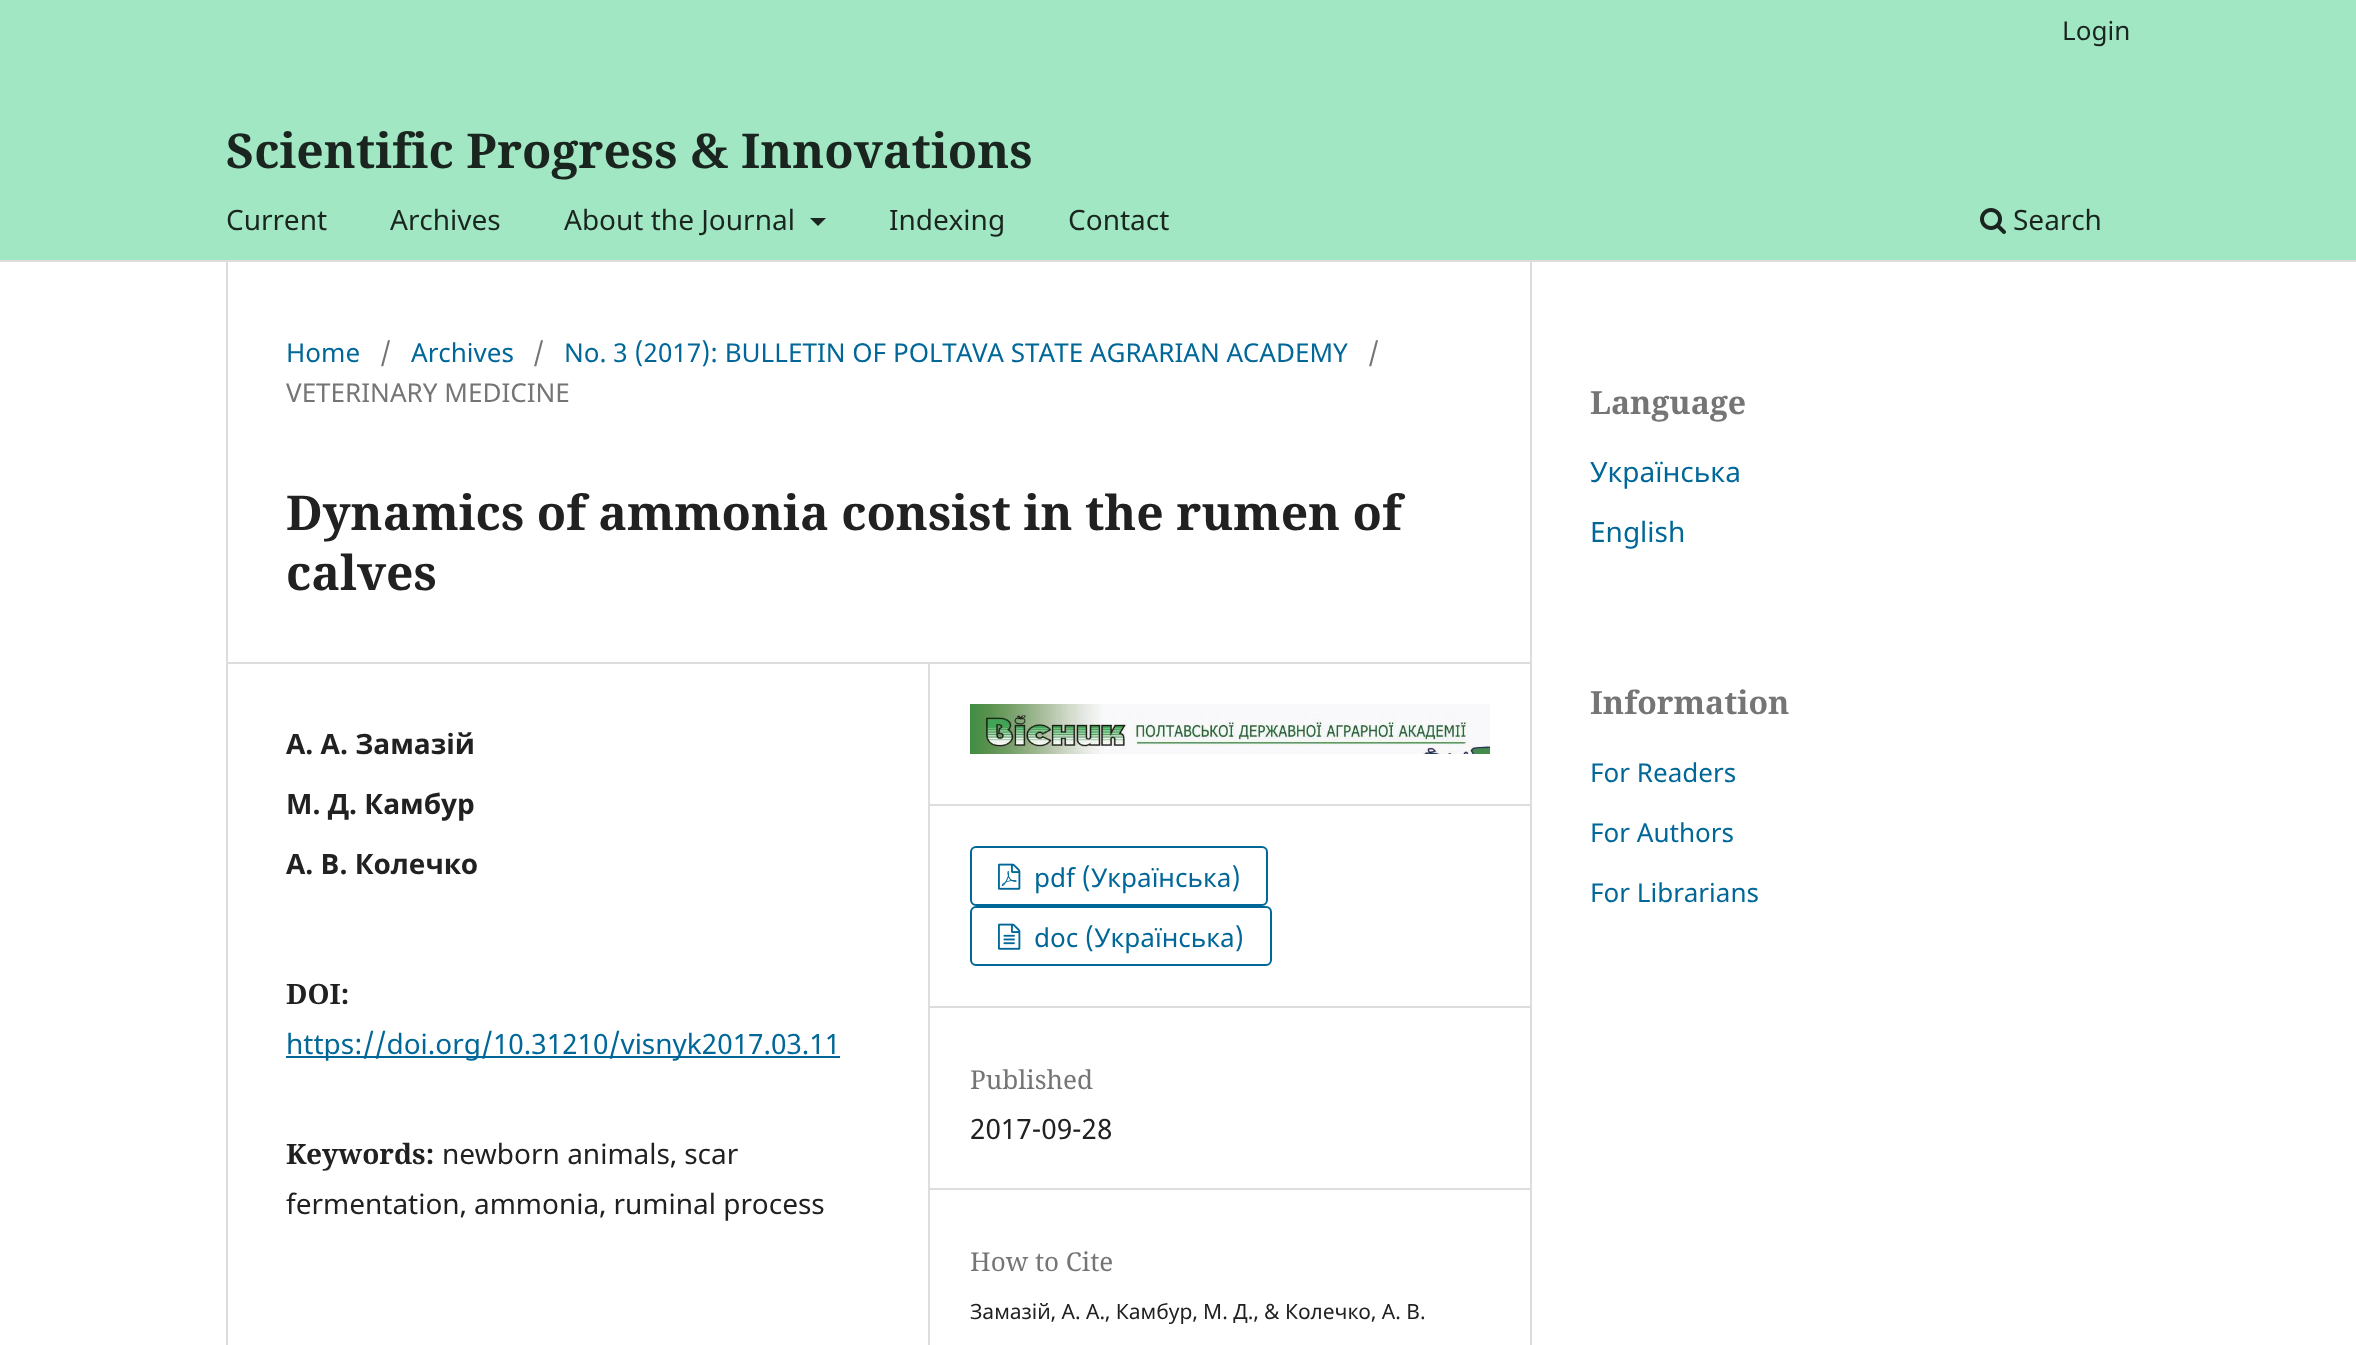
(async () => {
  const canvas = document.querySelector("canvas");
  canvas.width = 2356;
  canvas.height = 1345;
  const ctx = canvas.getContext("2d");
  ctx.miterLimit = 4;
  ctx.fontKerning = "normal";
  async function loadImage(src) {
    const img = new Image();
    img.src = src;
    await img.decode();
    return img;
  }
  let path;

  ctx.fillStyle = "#ffffff";
  ctx.fillRect(0, 0, 2356, 1345);
  ctx.fillStyle = "#a2e7c4";
  ctx.fillRect(0, 0, 2356, 260);
  ctx.fillStyle = "#dddddd";
  ctx.fillRect(0, 260, 2356, 2);
  ctx.fillStyle = "#1a251f";
  path = new Path2D("M810 218H826L818 226Z");
  ctx.fill(path);
  ctx.drawImage(await loadImage("img/1.png"), 1980, 208, 26, 26);
  for (const [x, y, w, h, color] of [
    [226, 662, 1304, 2, "#dddddd"],
    [226, 262, 2, 1083, "#dddddd"],
    [928, 664, 2, 681, "#dddddd"],
    [286, 1056, 554, 2, "#006798"],
    [930, 804, 600, 2, "#dddddd"],
  ]) {
    ctx.fillStyle = color;
    ctx.fillRect(x, y, w, h);
  }
  ctx.drawImage(await loadImage("img/2.png"), 970, 704, 520, 50);
  ctx.fillRect(930, 1006, 600, 2);
  ctx.beginPath();
  ctx.roundRect(971, 847, 296, 58, 5);
  ctx.strokeStyle = "#006798";
  ctx.lineWidth = 2;
  ctx.stroke();
  ctx.drawImage(await loadImage("img/3.png"), 998, 863, 23, 27);
  ctx.beginPath();
  ctx.roundRect(971, 907, 300, 58, 5);
  ctx.stroke();
  ctx.drawImage(await loadImage("img/4.png"), 998, 923, 23, 27);
  ctx.fillRect(930, 1188, 600, 2);
  ctx.fillRect(1530, 262, 2, 1083);
  ctx.font = "26.05px Noto Sans";
  ctx.fillStyle = "#1a251f";
  ctx.fillText("Login", 2062, 40);
  ctx.font = "28px Noto Sans";
  for (const [text, x, y] of [
    ["Current", 226, 230],
    ["Archives", 390, 230],
    ["About the Journal", 564, 230],
    ["Indexing", 889, 230],
    ["Contact", 1068, 230],
    ["Search", 2013, 230],
  ]) {
    ctx.fillText(text, x, y);
  }
  ctx.font = "bold 48px Noto Serif";
  ctx.fillText("Scientific Progress & Innovations", 226, 168);
  ctx.font = "26.05px Noto Sans";
  ctx.fillStyle = "#006798";
  ctx.fillText("Home", 286, 362);
  ctx.fillStyle = "#757575";
  ctx.fillText("/", 380, 362);
  ctx.fillStyle = "#006798";
  ctx.fillText("Archives", 411, 362);
  ctx.fillStyle = "#757575";
  ctx.fillText("/", 533, 362);
  ctx.fillStyle = "#006798";
  ctx.fillText("No. 3 (2017): BULLETIN OF POLTAVA STATE AGRARIAN ACADEMY", 564, 362);
  ctx.fillStyle = "#757575";
  ctx.fillText("/", 1368, 362);
  ctx.fillText("VETERINARY MEDICINE", 286, 402);
  ctx.font = "bold 48px Noto Serif";
  ctx.fillStyle = "#212121";
  ctx.fillText("Dynamics of ammonia consist in the rumen of", 286, 530);
  ctx.fillText("calves", 286, 590);
  ctx.font = "bold 28px Noto Sans";
  for (const [text, x, y] of [
    ["А. А. Замазій", 286, 754],
    ["М. Д. Камбур", 286, 814],
    ["А. В. Колечко", 286, 874],
  ]) {
    ctx.fillText(text, x, y);
  }
  ctx.font = "bold 28px Noto Serif";
  ctx.fillText("DOI:", 286, 1004);
  ctx.font = "28px Noto Sans";
  ctx.fillStyle = "#006798";
  ctx.fillText("https://doi.org/10.31210/visnyk2017.03.11", 286, 1054);
  ctx.font = "bold 28px Noto Serif";
  ctx.fillStyle = "#212121";
  ctx.fillText("Keywords:", 286, 1164);
  ctx.font = "28px Noto Sans";
  ctx.fillText("newborn animals, scar", 442, 1164);
  ctx.fillText("fermentation, ammonia, ruminal process", 286, 1214);
  ctx.font = "26.05px Noto Sans";
  ctx.fillStyle = "#006798";
  ctx.fillText("pdf (Українська)", 1034, 887);
  ctx.fillText("doc (Українська)", 1034, 947);
  ctx.font = "26.05px Noto Serif";
  ctx.fillStyle = "#757575";
  ctx.fillText("Published", 970, 1089);
  ctx.font = "28px Noto Sans";
  ctx.fillStyle = "#212121";
  ctx.fillText("2017-09-28", 970, 1139);
  ctx.font = "26.05px Noto Serif";
  ctx.fillStyle = "#757575";
  ctx.fillText("How to Cite", 970, 1271);
  ctx.font = "21px Noto Sans";
  ctx.fillStyle = "#212121";
  ctx.fillText("Замазій, А. А., Камбур, М. Д., & Колечко, А. В.", 970, 1319);
  ctx.font = "bold 32px Noto Serif";
  ctx.fillStyle = "#757575";
  ctx.fillText("Language", 1590, 414);
  ctx.font = "28px Noto Sans";
  ctx.fillStyle = "#006798";
  ctx.fillText("Українська", 1590, 482);
  ctx.fillText("English", 1590, 542);
  ctx.font = "bold 32px Noto Serif";
  ctx.fillStyle = "#757575";
  ctx.fillText("Information", 1590, 714);
  ctx.font = "26.05px Noto Sans";
  ctx.fillStyle = "#006798";
  for (const [text, x, y] of [
    ["For Readers", 1590, 782],
    ["For Authors", 1590, 842],
    ["For Librarians", 1590, 902],
  ]) {
    ctx.fillText(text, x, y);
  }
})();
